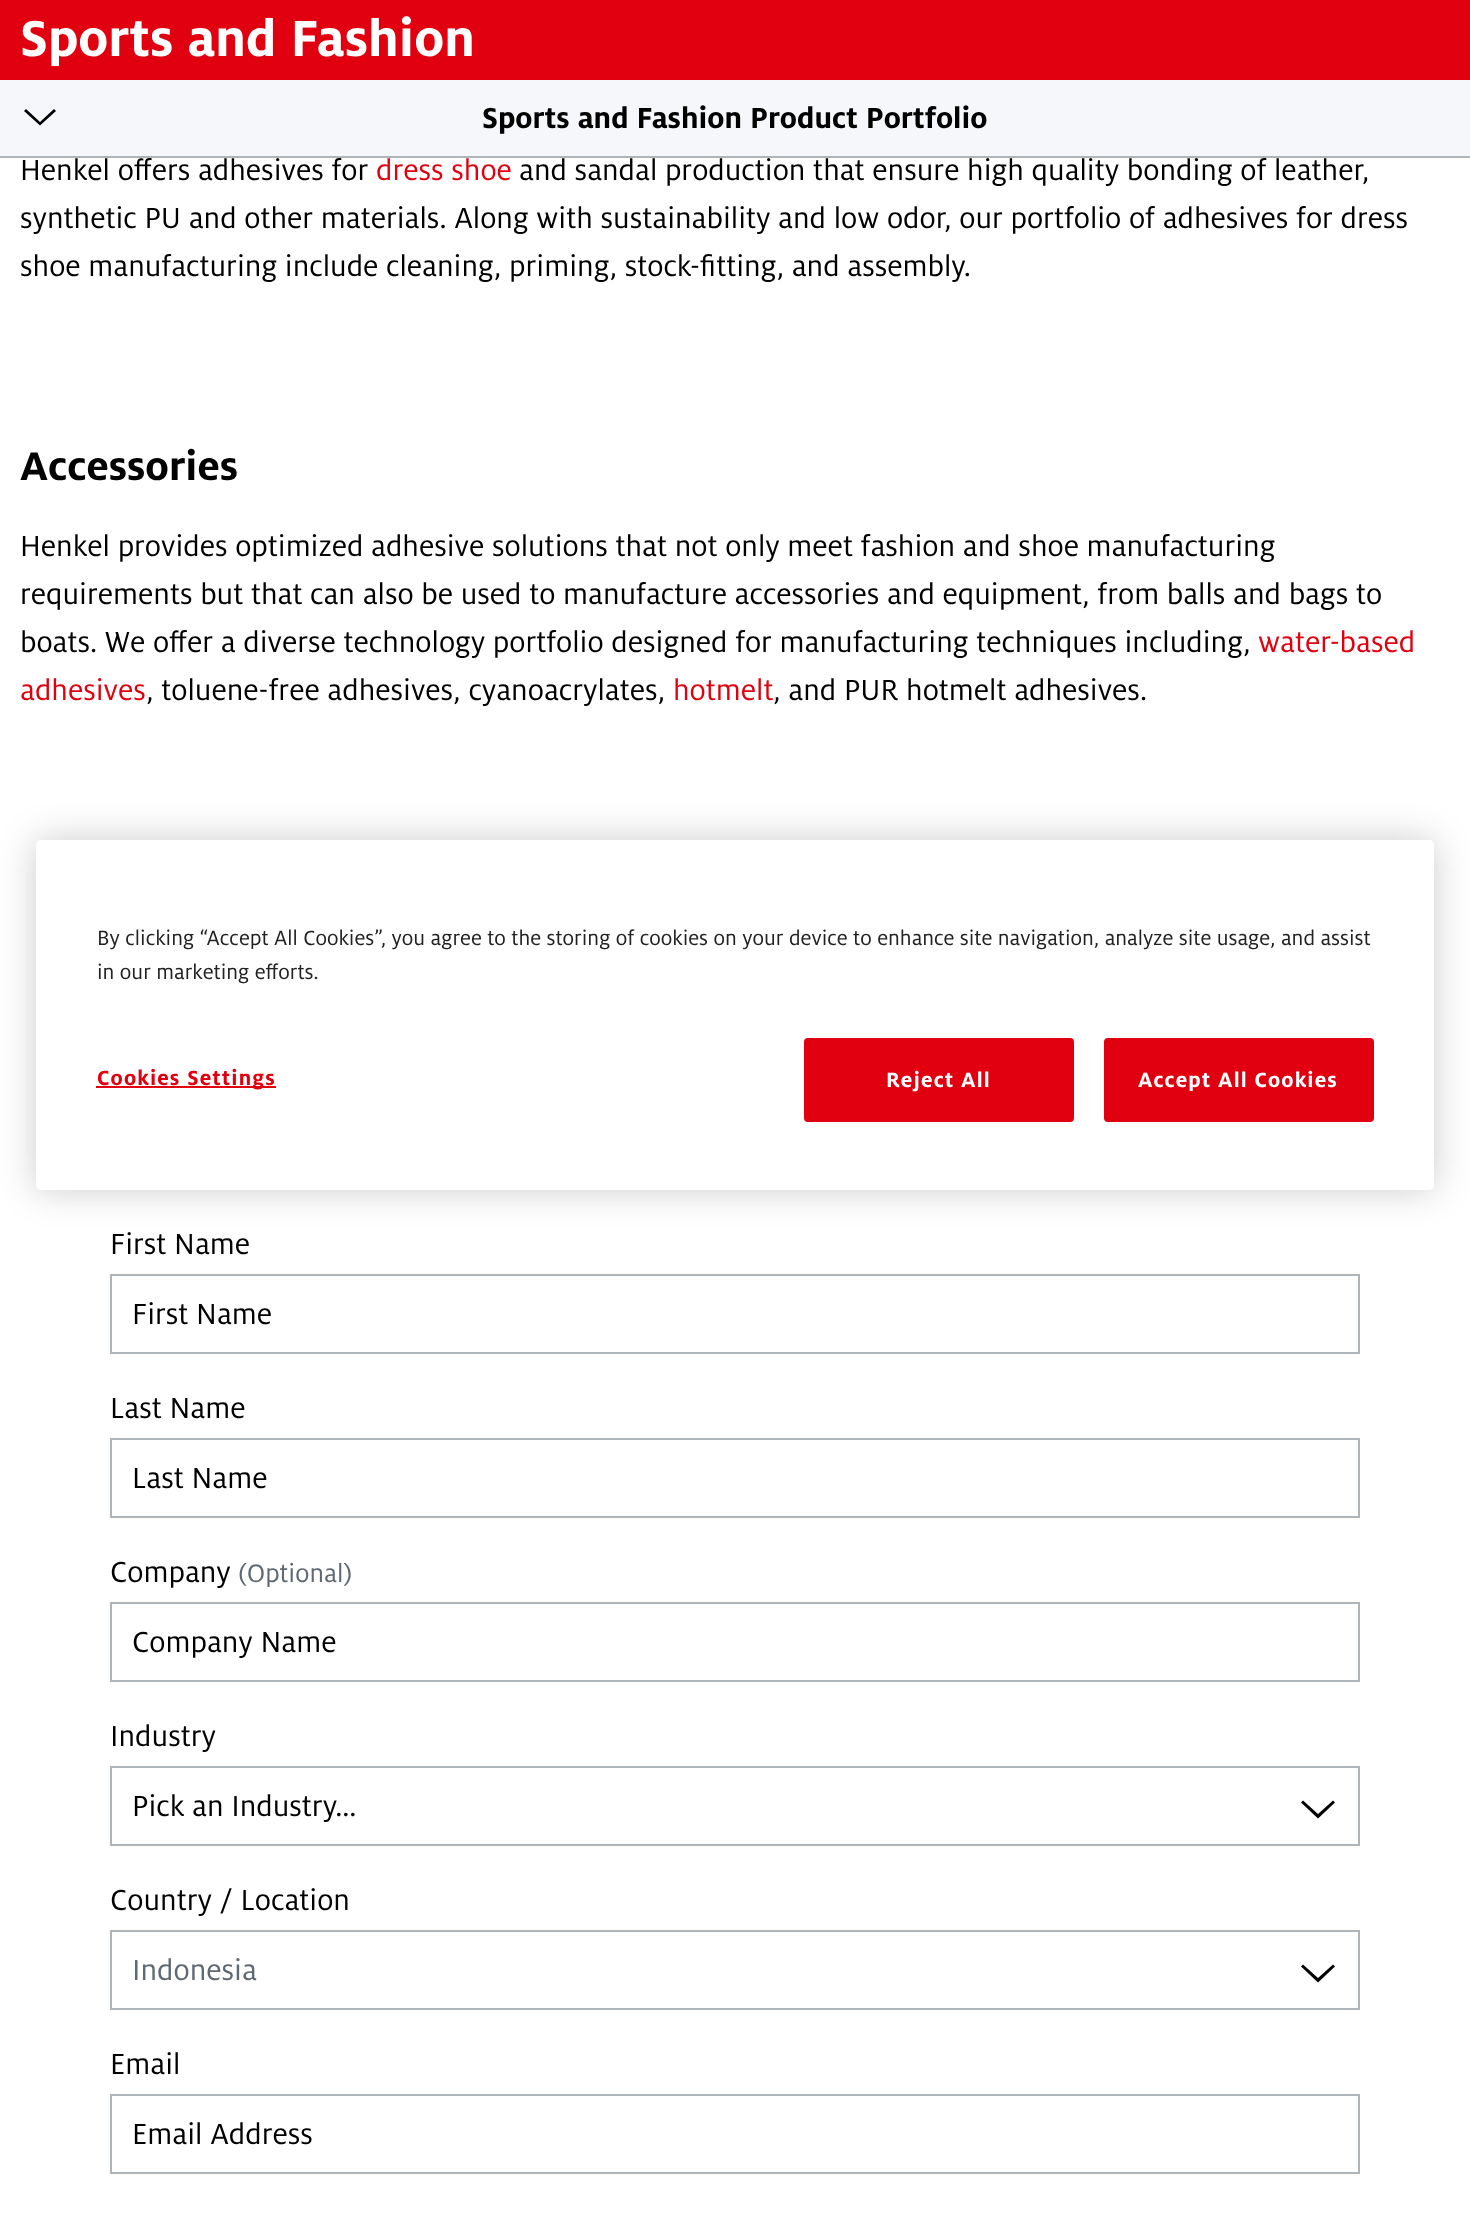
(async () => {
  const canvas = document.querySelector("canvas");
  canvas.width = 1470;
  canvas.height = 2215;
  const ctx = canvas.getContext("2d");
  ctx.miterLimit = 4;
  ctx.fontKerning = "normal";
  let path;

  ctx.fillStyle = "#ffffff";
  ctx.fillRect(0, 0, 1470, 2215);
  for (const [x, y, w, h, color] of [
    [0, 0, 1470, 80, "#e1000f"],
    [0, 80, 1470, 76, "#f6f7fa"],
    [0, 156, 1470, 2, "#afb4b9"],
  ]) {
    ctx.fillStyle = color;
    ctx.fillRect(x, y, w, h);
  }
  ctx.fillStyle = "#000000";
  path = new Path2D("M54 109L40 122L26 109L24 111L40 125.5L56 111Z");
  ctx.fill(path);
  ctx.strokeStyle = "#afb4b9";
  ctx.lineWidth = 2;
  ctx.strokeRect(111, 1275, 1248, 78);
  ctx.strokeRect(111, 1439, 1248, 78);
  ctx.strokeRect(111, 1603, 1248, 78);
  ctx.strokeRect(111, 1767, 1248, 78);
  path = new Path2D("M1333 1800.5L1318 1814L1303 1800.5L1301 1802.5L1318 1818.5L1335 1802.5Z");
  ctx.fill(path);
  ctx.strokeRect(111, 1931, 1248, 78);
  path = new Path2D("M1333 1964.5L1318 1978L1303 1964.5L1301 1966.5L1318 1982.5L1335 1966.5Z");
  ctx.fill(path);
  ctx.strokeRect(111, 2095, 1248, 78);
  ctx.fillStyle = "rgba(0, 0, 0, 0.2)";
  ctx.filter = "blur(18px)";
  ctx.beginPath();
  ctx.roundRect(36, 840, 1398, 350, 5);
  ctx.fill();
  ctx.filter = "none";
  ctx.fillStyle = "#ffffff";
  ctx.beginPath();
  ctx.roundRect(36, 840, 1398, 350, 5);
  ctx.fill();
  ctx.fillStyle = "#e1000f";
  ctx.fillRect(96, 1086, 180, 2);
  ctx.beginPath();
  ctx.roundRect(805, 1039, 268, 82, 3);
  ctx.fill();
  ctx.strokeStyle = "#e1000f";
  ctx.stroke();
  ctx.beginPath();
  ctx.roundRect(1105, 1039, 268, 82, 3);
  ctx.fill();
  ctx.stroke();
  ctx.font = "bold 56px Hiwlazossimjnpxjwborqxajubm";
  ctx.fillStyle = "#ffffff";
  ctx.fillText("Sports and Fashion", 20, 56);
  ctx.font = "bold 32px Hiwlazossimjnpxjwborqxajubm";
  ctx.fillStyle = "#000000";
  ctx.fillText("Sports and Fashion Product Portfolio", 482, 128);
  ctx.font = "32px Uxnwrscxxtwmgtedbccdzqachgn";
  ctx.fillText("Henkel offers adhesives for", 20, 180);
  ctx.fillStyle = "#e1000f";
  ctx.fillText("dress shoe", 376, 180);
  ctx.fillStyle = "#000000";
  for (const [text, x, y] of [
    ["and sandal production that ensure high quality bonding of leather,", 519, 180],
    ["synthetic PU and other materials. Along with sustainability and low odor, our portfolio of adhesives for dress", 20, 228],
    ["shoe manufacturing include cleaning, priming, stock-fitting, and assembly.", 20, 276],
  ]) {
    ctx.fillText(text, x, y);
  }
  ctx.font = "bold 44px Hiwlazossimjnpxjwborqxajubm";
  ctx.fillText("Accessories", 20, 480);
  ctx.font = "32px Uxnwrscxxtwmgtedbccdzqachgn";
  for (const [text, x, y] of [
    ["Henkel provides optimized adhesive solutions that not only meet fashion and shoe manufacturing", 20, 556],
    ["requirements but that can also be used to manufacture accessories and equipment, from balls and bags to", 20, 604],
    ["boats. We offer a diverse technology portfolio designed for manufacturing techniques including,", 20, 652],
  ]) {
    ctx.fillText(text, x, y);
  }
  ctx.fillStyle = "#e1000f";
  ctx.fillText("water-based", 1258, 652);
  ctx.fillText("adhesives", 20, 700);
  ctx.fillStyle = "#000000";
  ctx.fillText(", toluene-free adhesives, cyanoacrylates,", 146, 700);
  ctx.fillStyle = "#e1000f";
  ctx.fillText("hotmelt", 673, 700);
  ctx.fillStyle = "#000000";
  for (const [text, x, y] of [
    [", and PUR hotmelt adhesives.", 773, 700],
    ["First Name", 110, 1254],
    ["First Name", 132, 1324],
    ["Last Name", 110, 1418],
    ["Last Name", 132, 1488],
    ["Company", 110, 1582],
  ]) {
    ctx.fillText(text, x, y);
  }
  ctx.font = "28px Uxnwrscxxtwmgtedbccdzqachgn";
  ctx.fillStyle = "#5f6973";
  ctx.fillText("(Optional)", 238, 1582);
  ctx.font = "32px Uxnwrscxxtwmgtedbccdzqachgn";
  ctx.fillStyle = "#000000";
  for (const [text, x, y] of [
    ["Company Name", 132, 1652],
    ["Industry", 110, 1746],
    ["Pick an Industry...", 132, 1816],
    ["Country / Location", 110, 1910],
  ]) {
    ctx.fillText(text, x, y);
  }
  ctx.fillStyle = "#5f6973";
  ctx.fillText("Indonesia", 132, 1980);
  ctx.fillStyle = "#000000";
  ctx.fillText("Email", 110, 2074);
  ctx.fillText("Email Address", 132, 2144);
  ctx.font = "22.75px Uxnwrscxxtwmgtedbccdzqachgn";
  ctx.fillStyle = "#222222";
  ctx.fillText("By clicking “Accept All Cookies”, you agree to the storing of cookies on your device to enhance site navigation, analyze site usage, and assist", 97, 945);
  ctx.fillText("in our marketing efforts.", 97, 979);
  ctx.letterSpacing = "1.1px";
  ctx.font = "bold 22.75px Hiwlazossimjnpxjwborqxajubm";
  ctx.fillStyle = "#e1000f";
  ctx.fillText("Cookies Settings", 97, 1085);
  ctx.fillStyle = "#ffffff";
  ctx.fillText("Reject All", 886, 1087);
  ctx.fillText("Accept All Cookies", 1138, 1087);
})();
